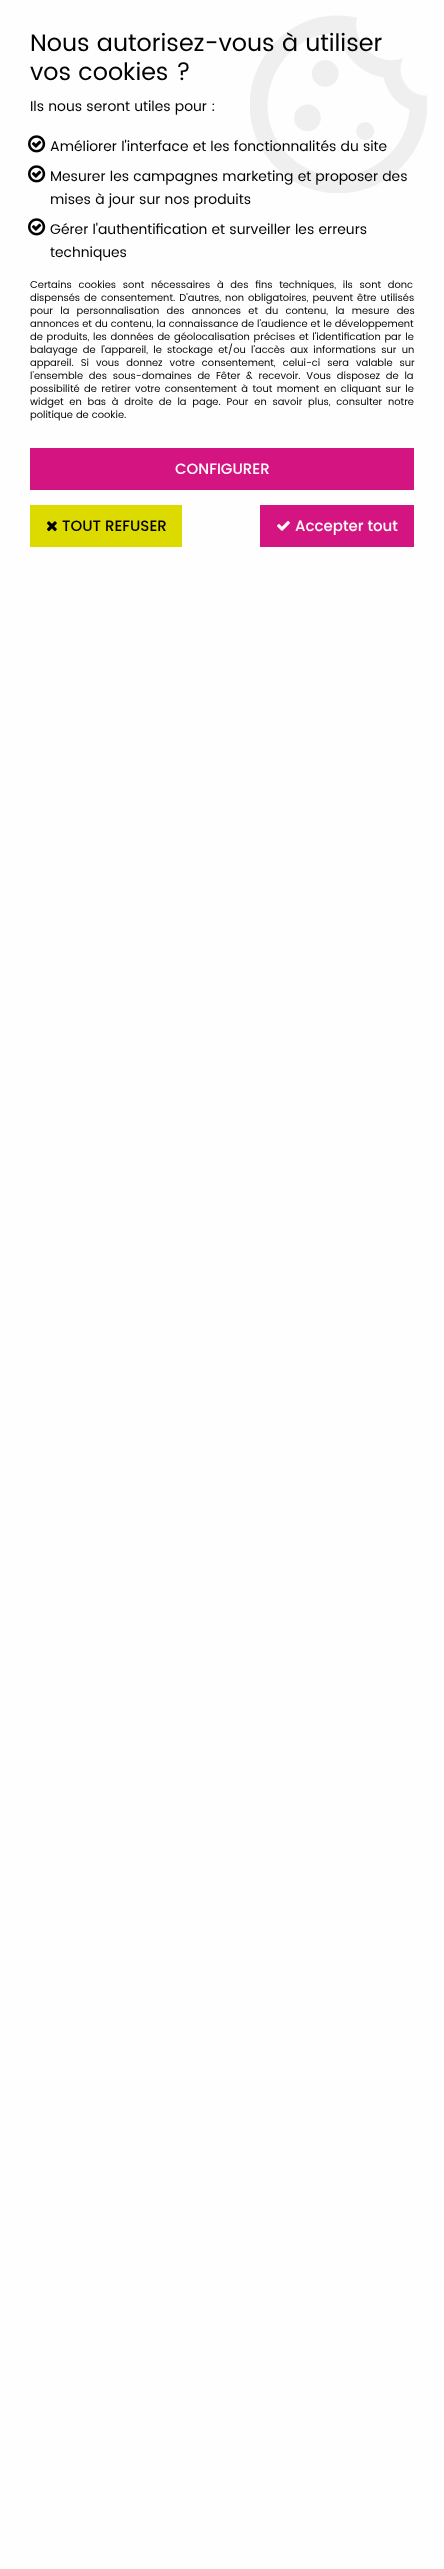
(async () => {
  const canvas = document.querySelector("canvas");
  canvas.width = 444;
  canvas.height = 2569;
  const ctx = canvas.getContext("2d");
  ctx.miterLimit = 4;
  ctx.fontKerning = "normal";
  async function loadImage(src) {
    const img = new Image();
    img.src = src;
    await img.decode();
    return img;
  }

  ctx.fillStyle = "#fefefe";
  ctx.fillRect(0, 0, 444, 2569);
  ctx.drawImage(await loadImage("img/1.png"), 250, 15, 177, 178);
  ctx.drawImage(await loadImage("img/2.png"), 28, 135, 18, 18);
  ctx.drawImage(await loadImage("img/2.png"), 28, 165, 18, 18);
  ctx.drawImage(await loadImage("img/2.png"), 28, 218, 18, 18);
  ctx.fillStyle = "#d41581";
  ctx.fillRect(30, 448, 384, 42);
  ctx.fillStyle = "#ddda00";
  ctx.fillRect(30, 505, 152, 42);
  ctx.drawImage(await loadImage("img/3.png"), 47, 521, 10, 11);
  ctx.fillStyle = "#d41581";
  ctx.fillRect(260, 505, 154, 42);
  ctx.drawImage(await loadImage("img/4.png"), 277, 521, 13, 10);
  ctx.font = "24px Poppins";
  ctx.fillStyle = "#000000";
  ctx.fillText("Nous autorisez-vous à utiliser", 30, 51);
  ctx.fillText("vos cookies ?", 30, 80);
  ctx.font = "14px Poppins";
  for (const [text, x, y] of [
    ["Ils nous seront utiles pour :", 30, 111],
    ["Améliorer l'interface et les fonctionnalités du site", 50, 151],
    ["Mesurer les campagnes marketing et proposer des", 50, 181],
    ["mises à jour sur nos produits", 50, 204],
    ["Gérer l'authentification et surveiller les erreurs", 50, 234],
    ["techniques", 50, 257],
  ]) {
    ctx.fillText(text, x, y);
  }
  ctx.wordSpacing = "3.75px";
  ctx.font = "10px Poppins";
  ctx.fillText("Certains cookies sont nécessaires à des fins techniques, ils sont donc", 30, 288);
  ctx.wordSpacing = "1px";
  ctx.fillText("dispensés de consentement. D'autres, non obligatoires, peuvent être utilisés", 30, 301);
  ctx.wordSpacing = "4.25px";
  ctx.fillText("pour la personnalisation des annonces et du contenu, la mesure des", 30, 314);
  ctx.wordSpacing = "0px";
  ctx.fillText("annonces et du contenu, la connaissance de l'audience et le développement", 30, 327);
  ctx.wordSpacing = "0.75px";
  ctx.fillText("de produits, les données de géolocalisation précises et l'identification par le", 30, 340);
  ctx.wordSpacing = "2.25px";
  ctx.fillText("balayage de l'appareil, le stockage et/ou l'accès aux informations sur un", 30, 353);
  ctx.wordSpacing = "4px";
  ctx.fillText("appareil. Si vous donnez votre consentement, celui-ci sera valable sur", 30, 366);
  ctx.wordSpacing = "2.75px";
  ctx.fillText("l’ensemble des sous-domaines de Fêter & recevoir. Vous disposez de la", 30, 379);
  ctx.wordSpacing = "1.5px";
  ctx.fillText("possibilité de retirer votre consentement à tout moment en cliquant sur le", 30, 392);
  ctx.wordSpacing = "2.75px";
  ctx.fillText("widget en bas à droite de la page. Pour en savoir plus, consulter notre", 30, 405);
  ctx.wordSpacing = "0px";
  ctx.fillText("politique de cookie.", 30, 418);
  ctx.font = "500 15px Poppins";
  ctx.fillStyle = "#ffffff";
  ctx.fillText("CONFIGURER", 175, 474);
  ctx.fillStyle = "#000000";
  ctx.fillText("TOUT REFUSER", 62, 531);
  ctx.fillStyle = "#ffffff";
  ctx.fillText("Accepter tout", 295, 531);
})();
